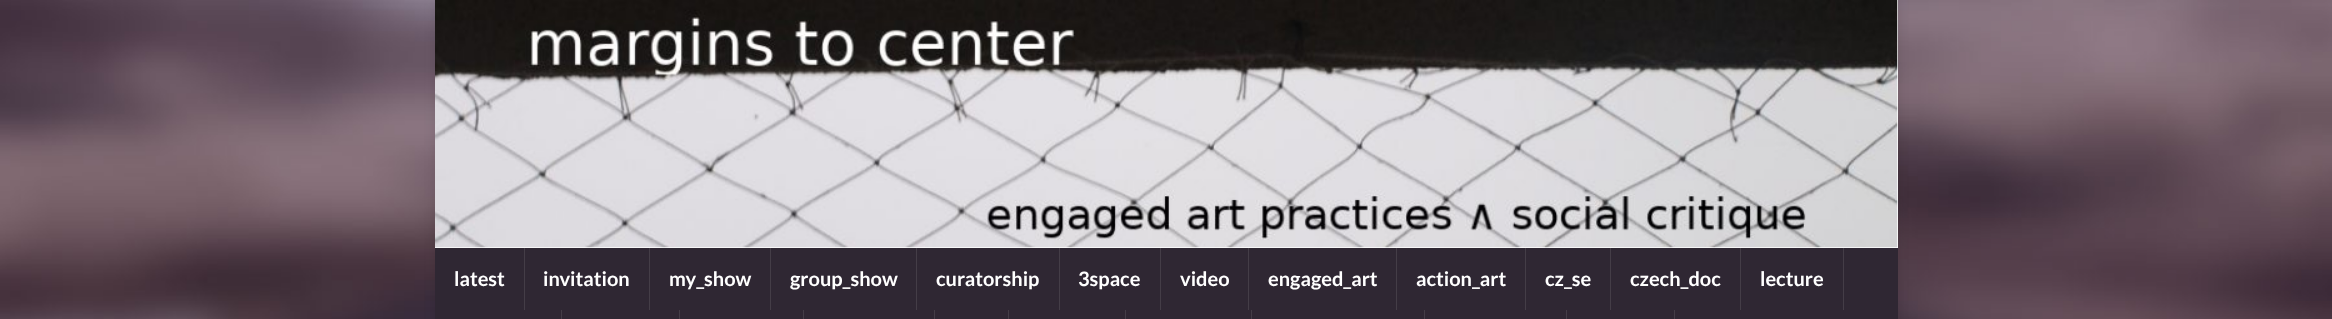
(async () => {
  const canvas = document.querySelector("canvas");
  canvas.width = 2332;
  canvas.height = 319;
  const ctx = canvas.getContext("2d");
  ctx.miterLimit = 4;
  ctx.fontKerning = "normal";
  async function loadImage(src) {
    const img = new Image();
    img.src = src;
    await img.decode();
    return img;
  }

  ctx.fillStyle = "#ffffff";
  ctx.fillRect(0, 0, 2332, 319);
  ctx.drawImage(await loadImage("img/1.png"), 0, 0, 2332, 319);
  ctx.fillStyle = "rgba(0, 0, 0, 0.1)";
  ctx.filter = "blur(6px)";
  ctx.beginPath();
  ctx.rect(435, 0, 1463, 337);
  ctx.fill();
  ctx.filter = "none";
  ctx.fillStyle = "#ffffff";
  ctx.fillRect(435, 0, 1463, 248);
  ctx.drawImage(await loadImage("img/2.png"), 435, 0, 1463, 248);
  for (const [x, y, w, h, color] of [
    [435, 248, 1463, 71, "#2f2733"],
    [524, 248, 1, 62, "#443d47"],
    [649, 248, 1, 62, "#443d47"],
    [770, 248, 1, 62, "#443d47"],
    [916, 248, 1, 62, "#443d47"],
    [1059, 248, 1, 62, "#443d47"],
    [1160, 248, 1, 62, "#443d47"],
    [1248, 248, 1, 62, "#443d47"],
    [1396, 248, 1, 62, "#443d47"],
    [1525, 248, 1, 62, "#443d47"],
    [1610, 248, 1, 62, "#443d47"],
    [1740, 248, 1, 62, "#443d47"],
    [1843, 248, 1, 62, "#443d47"],
    [561, 310, 1, 9, "#443d47"],
    [679, 310, 1, 9, "#443d47"],
    [803, 310, 1, 9, "#443d47"],
    [934, 310, 1, 9, "#443d47"],
    [1008, 310, 1, 9, "#443d47"],
    [1125, 310, 1, 9, "#443d47"],
    [1251, 310, 1, 9, "#443d47"],
    [1424, 310, 1, 9, "#443d47"],
    [1566, 310, 1, 9, "#443d47"],
    [1674, 310, 1, 9, "#443d47"],
  ]) {
    ctx.fillStyle = color;
    ctx.fillRect(x, y, w, h);
  }
  ctx.font = "bold 20px Lato";
  ctx.fillStyle = "#ffffff";
  for (const [text, x, y] of [
    ["latest", 454, 286],
    ["invitation", 543, 286],
    ["my_show", 669, 286],
    ["group_show", 790, 286],
    ["curatorship", 936, 286],
    ["3space", 1078, 286],
    ["video", 1180, 286],
    ["engaged_art", 1268, 286],
    ["action_art", 1416, 286],
    ["cz_se", 1545, 286],
    ["czech_doc", 1630, 286],
    ["lecture", 1760, 286],
  ]) {
    ctx.fillText(text, x, y);
  }
})();
